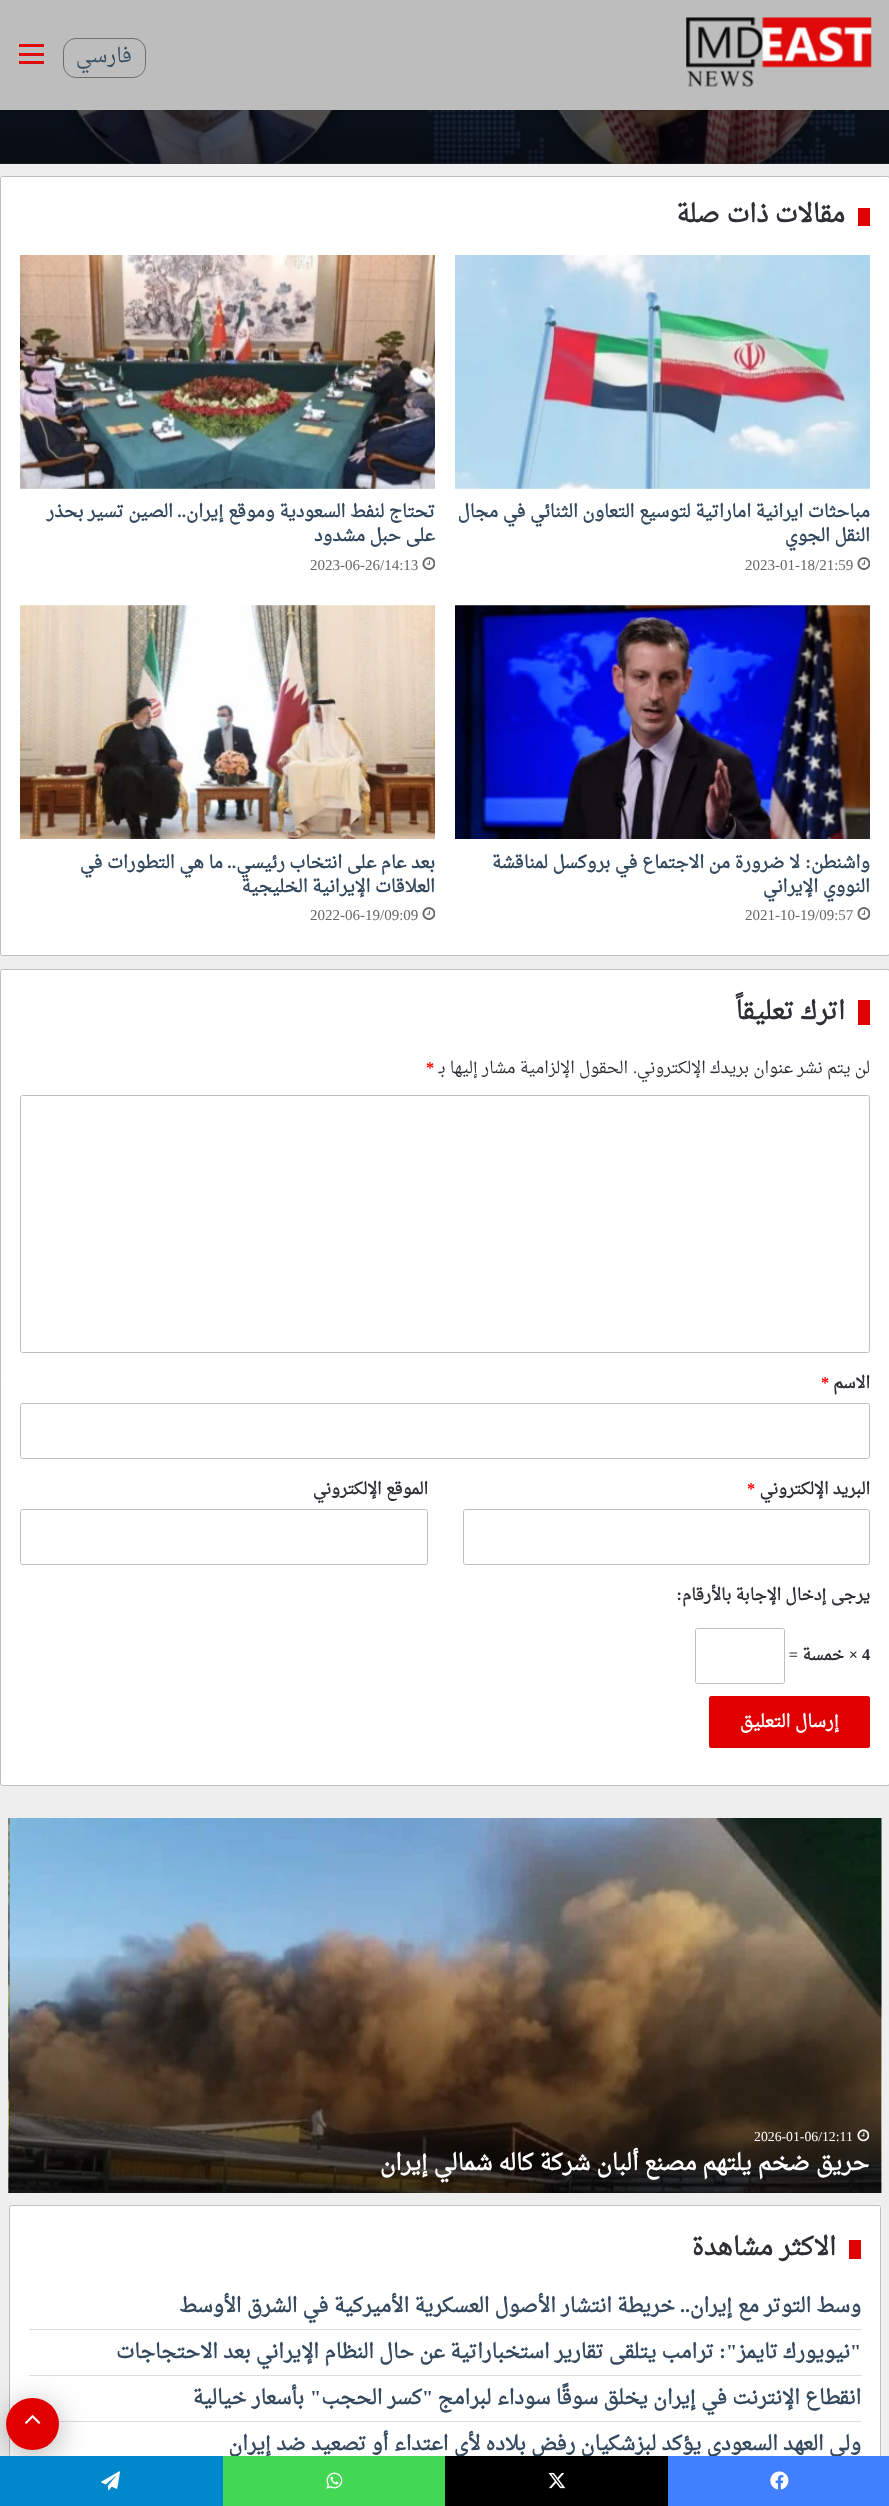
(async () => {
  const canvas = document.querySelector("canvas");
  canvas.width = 889;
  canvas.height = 2506;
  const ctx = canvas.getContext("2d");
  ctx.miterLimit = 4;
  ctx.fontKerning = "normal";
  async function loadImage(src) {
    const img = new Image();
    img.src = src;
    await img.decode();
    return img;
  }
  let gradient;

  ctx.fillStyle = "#eeeeee";
  ctx.fillRect(0, 0, 889, 2506);
  ctx.drawImage(await loadImage("img/2.png"), 0, 110, 889, 54);
  gradient = ctx.createLinearGradient(445, -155, 445, 164);
  gradient.addColorStop(0, "rgba(0, 0, 0, 0)");
  gradient.addColorStop(1, "rgba(0, 0, 0, 0.75)");
  ctx.fillStyle = gradient;
  ctx.fillRect(0, 110, 889, 54);
  ctx.fillStyle = "rgba(0, 0, 0, 0.1)";
  ctx.filter = "blur(4.5px)";
  ctx.beginPath();
  ctx.rect(0, 4, 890, 110);
  ctx.fill();
  ctx.filter = "none";
  ctx.fillStyle = "#bdbdbd";
  ctx.fillRect(0, 0, 889, 110);
  ctx.drawImage(await loadImage("img/1.png"), 686, 17, 186, 70);
  ctx.beginPath();
  ctx.roundRect(63.5, 38.5, 82, 39, 12.5);
  ctx.strokeStyle = "#6f6f6f";
  ctx.stroke();
  for (const [x, y, w, h, color] of [
    [19, 53, 25, 3, "#de0909"],
    [19, 44, 25, 3, "#de0909"],
    [19, 61, 25, 3, "#de0909"],
  ]) {
    ctx.fillStyle = color;
    ctx.fillRect(x, y, w, h);
  }
  ctx.fillStyle = "#ffffff";
  ctx.beginPath();
  ctx.roundRect(0.5, 176.5, 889, 779, 2);
  ctx.fill();
  ctx.strokeStyle = "#bfbfbf";
  ctx.stroke();
  ctx.fillStyle = "#e00000";
  ctx.fillRect(858, 208, 12, 18);
  ctx.drawImage(await loadImage("img/3.png"), 455, 255, 415, 234);
  ctx.drawImage(await loadImage("img/4.png"), 857, 557, 13, 13);
  ctx.drawImage(await loadImage("img/5.png"), 20, 255, 415, 234);
  ctx.drawImage(await loadImage("img/4.png"), 422, 557, 13, 13);
  ctx.drawImage(await loadImage("img/6.png"), 455, 605, 415, 234);
  ctx.drawImage(await loadImage("img/4.png"), 857, 907, 13, 13);
  ctx.drawImage(await loadImage("img/7.png"), 20, 605, 415, 234);
  ctx.drawImage(await loadImage("img/4.png"), 422, 907, 13, 13);
  ctx.fillStyle = "#ffffff";
  ctx.beginPath();
  ctx.roundRect(0.5, 969.5, 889, 816, 2);
  ctx.fill();
  ctx.stroke();
  ctx.fillStyle = "#e00000";
  ctx.fillRect(858, 1000, 12, 25);
  ctx.beginPath();
  ctx.roundRect(20.5, 1095.5, 849, 257, 2);
  ctx.stroke();
  ctx.beginPath();
  ctx.roundRect(20.5, 1403.5, 849, 55, 2);
  ctx.stroke();
  ctx.beginPath();
  ctx.roundRect(463.5, 1509.5, 406, 55, 2);
  ctx.stroke();
  ctx.beginPath();
  ctx.roundRect(20.5, 1509.5, 407, 55, 2);
  ctx.stroke();
  ctx.beginPath();
  ctx.roundRect(695.5, 1628.5, 89, 55, 2);
  ctx.stroke();
  ctx.beginPath();
  ctx.roundRect(709, 1696, 161, 52, 2.5);
  ctx.fill();
  ctx.drawImage(await loadImage("img/8.png"), 9, 1818, 873, 375);
  ctx.drawImage(await loadImage("img/10.png"), 8, 1818, 2, 375);
  gradient = ctx.createLinearGradient(445, 1949, 445, 2193);
  gradient.addColorStop(0, "rgba(0, 0, 0, 0)");
  gradient.addColorStop(1, "rgba(0, 0, 0, 0.75)");
  ctx.fillStyle = gradient;
  ctx.fillRect(9, 1956, 872, 237);
  ctx.drawImage(await loadImage("img/9.png"), 857, 2129, 12, 13);
  ctx.fillStyle = "#ffffff";
  ctx.beginPath();
  ctx.roundRect(9.5, 2205.5, 871, 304, 2);
  ctx.fill();
  ctx.stroke();
  for (const [x, y, w, h, color] of [
    [849, 2240, 12, 19, "#e00000"],
    [29, 2329, 832, 1, "#dedede"],
    [29, 2375, 832, 1, "#dedede"],
    [58, 2421, 803, 1, "#dedede"],
  ]) {
    ctx.fillStyle = color;
    ctx.fillRect(x, y, w, h);
  }
  ctx.fillStyle = "rgba(0, 0, 0, 0.3)";
  ctx.filter = "blur(15.5px)";
  ctx.beginPath();
  ctx.roundRect(6, 2404, 53, 52, 26);
  ctx.fill();
  ctx.filter = "none";
  ctx.fillStyle = "#e00000";
  ctx.beginPath();
  ctx.roundRect(6, 2398, 53, 52, 26);
  ctx.fill();
  ctx.drawImage(await loadImage("img/11.png"), 25, 2415, 16, 9);
  ctx.fillStyle = "#0088cc";
  ctx.fillRect(0, 2456, 223, 50);
  ctx.drawImage(await loadImage("img/15.png"), 101, 2471, 19, 20);
  ctx.direction = "rtl";
  ctx.font = "20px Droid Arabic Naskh";
  ctx.fillStyle = "#3b4f63";
  ctx.fillText("فارسي", 132, 62);
  ctx.font = "bold 25px Droid Arabic Naskh";
  ctx.fillStyle = "#2c2f34";
  ctx.fillText("مقالات ذات صلة", 845, 222);
  ctx.font = "bold 17.5px Droid Arabic Naskh";
  ctx.fillStyle = "#34495e";
  ctx.fillText("مباحثات ايرانية اماراتية لتوسيع التعاون الثنائي في مجال", 870, 517);
  ctx.fillText("النقل الجوي", 870, 541);
  ctx.direction = "ltr";
  ctx.font = "15px Liberation Serif";
  ctx.fillStyle = "#666666";
  ctx.fillText("2023-01-18/21:59", 745, 570);
  ctx.direction = "rtl";
  ctx.font = "bold 17.5px Droid Arabic Naskh";
  ctx.fillStyle = "#34495e";
  ctx.fillText("تحتاج لنفط السعودية وموقع إيران", 435, 517);
  ctx.font = "bold 17.5px Liberation Serif";
  ctx.fillText("..", 186, 517);
  ctx.font = "bold 17.5px Droid Arabic Naskh";
  ctx.fillText("الصين تسير بحذر", 173, 517);
  ctx.fillText("على حبل مشدود", 435, 541);
  ctx.direction = "ltr";
  ctx.font = "15px Liberation Serif";
  ctx.fillStyle = "#666666";
  ctx.fillText("2023-06-26/14:13", 310, 570);
  ctx.direction = "rtl";
  ctx.font = "bold 17.5px Droid Arabic Naskh";
  ctx.fillStyle = "#34495e";
  ctx.fillText("واشنطن", 870, 868);
  ctx.font = "bold 17.5px Liberation Serif";
  ctx.fillText(":", 811, 868);
  ctx.font = "bold 17.5px Droid Arabic Naskh";
  ctx.fillText("لا ضرورة من الاجتماع في بروكسل لمناقشة", 800, 868);
  ctx.fillText("النووي الإيراني", 870, 892);
  ctx.direction = "ltr";
  ctx.font = "15px Liberation Serif";
  ctx.fillStyle = "#666666";
  ctx.fillText("2021-10-19/09:57", 745, 920);
  ctx.direction = "rtl";
  ctx.font = "bold 17.5px Droid Arabic Naskh";
  ctx.fillStyle = "#34495e";
  ctx.fillText("بعد عام على انتخاب رئيسي", 435, 868);
  ctx.font = "bold 17.5px Liberation Serif";
  ctx.fillText("..", 236, 868);
  ctx.font = "bold 17.5px Droid Arabic Naskh";
  ctx.fillText("ما هي التطورات في", 223, 868);
  ctx.fillText("العلاقات الإيرانية الخليجية", 435, 892);
  ctx.direction = "ltr";
  ctx.font = "15px Liberation Serif";
  ctx.fillStyle = "#666666";
  ctx.fillText("2022-06-19/09:09", 310, 920);
  ctx.direction = "rtl";
  ctx.font = "bold 25px Droid Arabic Naskh";
  ctx.fillStyle = "#2c2f34";
  ctx.fillText("اترك تعليقاً", 845, 1019);
  ctx.font = "16.25px Droid Arabic Naskh";
  ctx.fillText("لن يتم نشر عنوان بريدك الإلكتروني", 870, 1073);
  ctx.fillText("الحقول الإلزامية مشار إليها بـ", 628, 1073);
  ctx.direction = "ltr";
  ctx.font = "bold 16.25px Liberation Serif";
  ctx.fillStyle = "#ff0000";
  ctx.fillText("*", 426, 1073);
  ctx.direction = "rtl";
  ctx.font = "16.25px Liberation Serif";
  ctx.fillStyle = "#2c2f34";
  ctx.fillText(".", 637, 1073);
  ctx.font = "bold 16.25px Droid Arabic Naskh";
  ctx.fillText("الاسم", 870, 1388);
  ctx.direction = "ltr";
  ctx.font = "bold 16.25px Liberation Serif";
  ctx.fillStyle = "#ff0000";
  ctx.fillText("*", 821, 1388);
  ctx.direction = "rtl";
  ctx.font = "bold 16.25px Droid Arabic Naskh";
  ctx.fillStyle = "#2c2f34";
  ctx.fillText("البريد الإلكتروني", 870, 1494);
  ctx.direction = "ltr";
  ctx.font = "bold 16.25px Liberation Serif";
  ctx.fillStyle = "#ff0000";
  ctx.fillText("*", 747, 1494);
  ctx.direction = "rtl";
  ctx.font = "bold 16.25px Droid Arabic Naskh";
  ctx.fillStyle = "#2c2f34";
  ctx.fillText("الموقع الإلكتروني", 428, 1494);
  ctx.fillText("يرجى إدخال الإجابة بالأرقام", 870, 1600);
  ctx.font = "bold 16.25px Liberation Serif";
  ctx.fillText(":", 682, 1600);
  ctx.direction = "ltr";
  ctx.fillText("4", 862, 1660);
  ctx.direction = "rtl";
  ctx.fillText("×", 858, 1660);
  ctx.font = "bold 16.25px Droid Arabic Naskh";
  ctx.fillText("خمسة", 844, 1660);
  ctx.font = "bold 16.25px Liberation Serif";
  ctx.fillText("=", 798, 1660);
  ctx.font = "bold 17.5px Droid Arabic Naskh";
  ctx.fillStyle = "#ffffff";
  ctx.fillText("إرسال التعليق", 839, 1727);
  ctx.direction = "ltr";
  ctx.font = "13.75px Liberation Serif";
  ctx.fillText("2026-01-06/12:11", 754, 2141);
  ctx.direction = "rtl";
  ctx.font = "bold 22.5px Droid Arabic Naskh";
  ctx.fillText("حريق ضخم يلتهم مصنع ألبان شركة كاله شمالي إيران", 869, 2170);
  ctx.font = "bold 25px Droid Arabic Naskh";
  ctx.fillStyle = "#2c2f34";
  ctx.fillText("الاكثر مشاهدة", 836, 2255);
  ctx.font = "bold 20px Droid Arabic Naskh";
  ctx.fillStyle = "#34495e";
  ctx.fillText("وسط التوتر مع إيران", 861, 2312);
  ctx.font = "bold 20px Liberation Serif";
  ctx.fillText("..", 690, 2312);
  ctx.font = "bold 20px Droid Arabic Naskh";
  ctx.fillText("خريطة انتشار الأصول العسكرية الأميركية في الشرق الأوسط", 675, 2312);
  ctx.font = "bold 20px Liberation Serif";
  ctx.fillText("\"", 861, 2358);
  ctx.font = "bold 20px Droid Arabic Naskh";
  ctx.fillText("نيويورك تايمز", 850, 2358);
  ctx.font = "bold 20px Liberation Serif";
  ctx.fillText("\":", 737, 2358);
  ctx.font = "bold 20px Droid Arabic Naskh";
  ctx.fillText("ترامب يتلقى تقارير استخباراتية عن حال النظام الإيراني بعد الاحتجاجات", 714, 2358);
  ctx.fillText("انقطاع الإنترنت في إيران يخلق سوقًا سوداء لبرامج", 861, 2404);
  ctx.font = "bold 20px Liberation Serif";
  ctx.fillText("\"", 433, 2404);
  ctx.font = "bold 20px Droid Arabic Naskh";
  ctx.fillText("كسر الحجب", 422, 2404);
  ctx.font = "bold 20px Liberation Serif";
  ctx.fillText("\"", 321, 2404);
  ctx.font = "bold 20px Droid Arabic Naskh";
  ctx.fillText("بأسعار خيالية", 304, 2404);
  ctx.fillText("ولي العهد السعودي يؤكد لبزشكيان رفض بلاده لأي اعتداء أو تصعيد ضد إيران", 861, 2450);
  ctx.fillStyle = "#4080ff";
  ctx.fillRect(668, 2456, 221, 50);
  ctx.drawImage(await loadImage("img/12.png"), 770, 2471, 19, 19);
  ctx.fillStyle = "#000000";
  ctx.fillRect(445, 2456, 223, 50);
  ctx.drawImage(await loadImage("img/13.png"), 548, 2472, 18, 17);
  ctx.fillStyle = "#43d854";
  ctx.fillRect(223, 2456, 222, 50);
  ctx.drawImage(await loadImage("img/14.png"), 326, 2472, 17, 17);
})();
